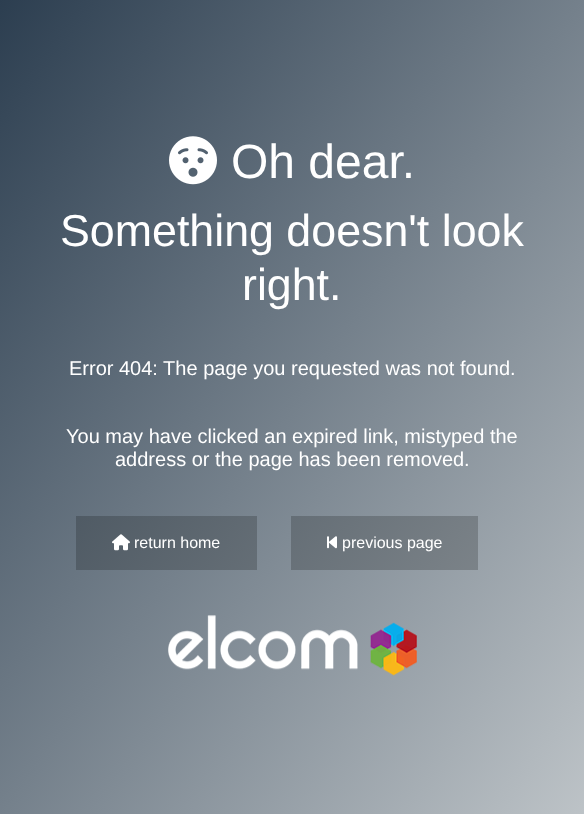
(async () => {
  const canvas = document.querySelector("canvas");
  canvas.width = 584;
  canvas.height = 814;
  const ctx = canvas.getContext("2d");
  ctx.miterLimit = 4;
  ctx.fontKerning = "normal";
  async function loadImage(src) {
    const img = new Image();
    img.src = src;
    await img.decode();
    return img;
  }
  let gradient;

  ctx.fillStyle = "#ffffff";
  ctx.fillRect(0, 0, 584, 814);
  gradient = ctx.createLinearGradient(-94, 130, 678, 684);
  gradient.addColorStop(0, "#2c3e50");
  gradient.addColorStop(1, "#bdc3c7");
  ctx.fillStyle = gradient;
  ctx.fillRect(0, 0, 584, 814);
  gradient = ctx.createLinearGradient(-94, 130, 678, 684);
  gradient.addColorStop(0, "#233240");
  gradient.addColorStop(1, "#979c9f");
  ctx.fillStyle = gradient;
  ctx.fillRect(291, 516, 187, 54);
  ctx.fillRect(76, 516, 181, 54);
  ctx.drawImage(await loadImage("img/1.png"), 169, 136, 48, 49);
  ctx.drawImage(await loadImage("img/2.png"), 112, 534, 18, 17);
  ctx.drawImage(await loadImage("img/3.png"), 327, 536, 10, 13);
  ctx.drawImage(await loadImage("img/4.png"), 168, 615, 249, 61);
  ctx.font = "48px Liberation Sans";
  ctx.fillStyle = "#ffffff";
  ctx.fillText("Oh dear.", 231, 178);
  ctx.font = "44.75px Liberation Sans";
  ctx.fillText("Something doesn't look", 60, 246);
  ctx.fillText("right.", 242, 300);
  ctx.font = "20px Liberation Sans";
  for (const [text, x, y] of [
    ["Error 404: The page you requested was not found.", 69, 375],
    ["You may have clicked an expired link, mistyped the", 66, 443],
    ["address or the page has been removed.", 115, 466],
  ]) {
    ctx.fillText(text, x, y);
  }
  ctx.font = "16px Liberation Sans";
  ctx.fillText("return home", 134, 548);
  ctx.fillText("previous page", 342, 548);
})();
